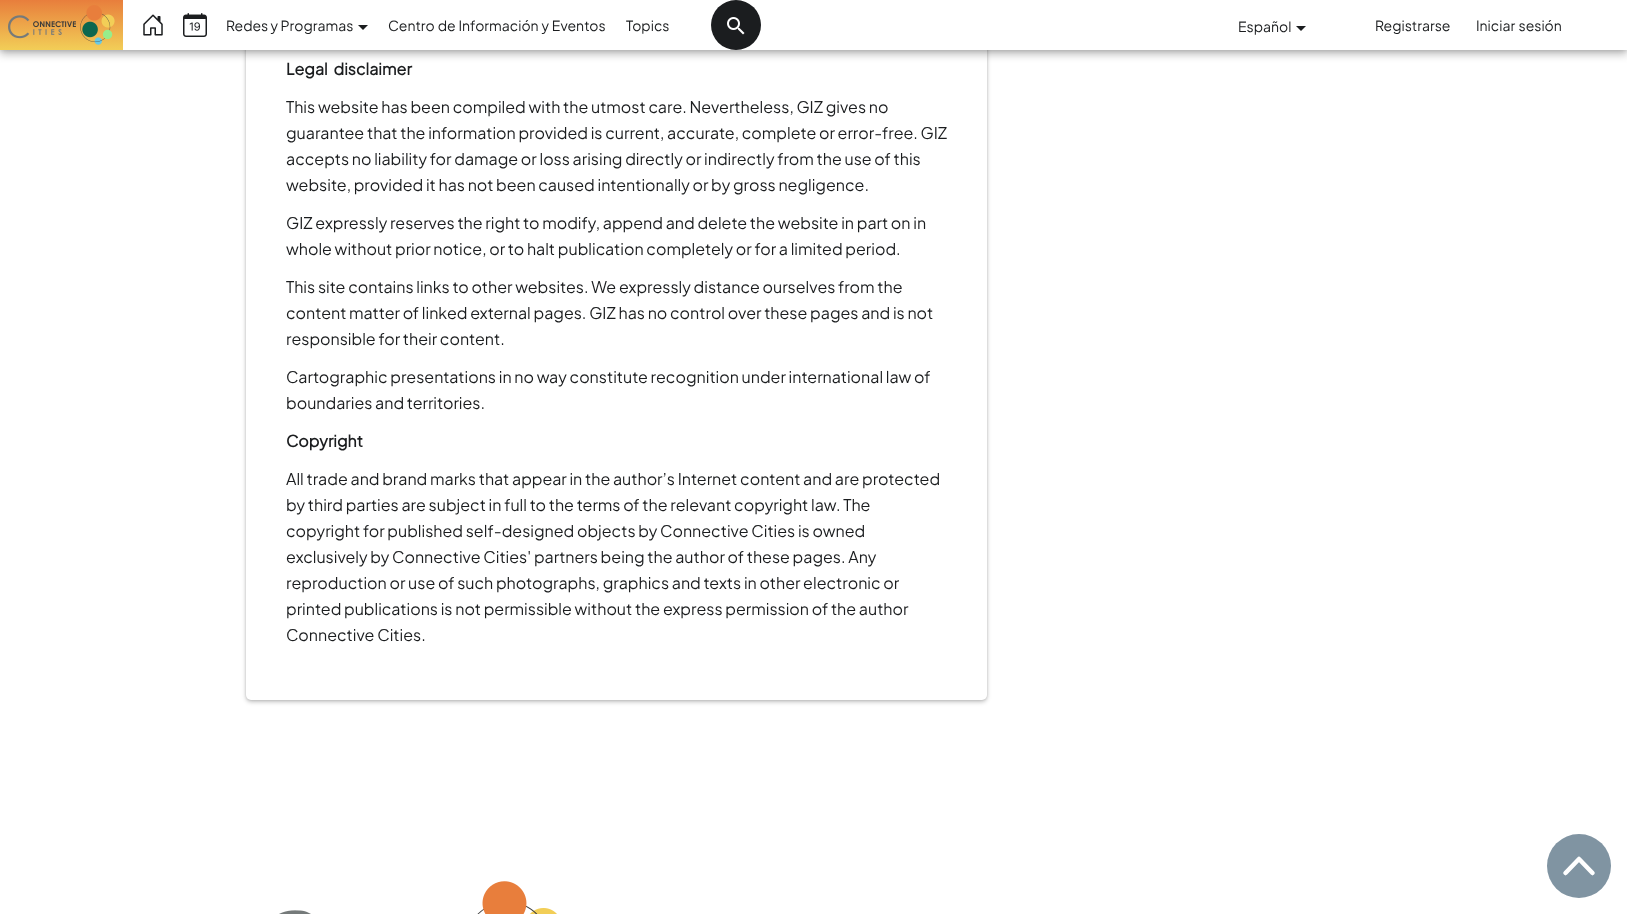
(async () => {
  const canvas = document.querySelector("canvas");
  canvas.width = 1627;
  canvas.height = 914;
  const ctx = canvas.getContext("2d");
  ctx.miterLimit = 4;
  ctx.fontKerning = "normal";
  async function loadImage(src) {
    const img = new Image();
    img.src = src;
    await img.decode();
    return img;
  }
  let gradient, path;

  ctx.fillStyle = "#ffffff";
  ctx.fillRect(0, 0, 1627, 914);
  ctx.fillStyle = "rgba(0, 0, 0, 0.24)";
  ctx.filter = "blur(2px)";
  ctx.beginPath();
  ctx.roundRect(246, -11, 741, 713, 5);
  ctx.fill();
  ctx.filter = "none";
  ctx.fillStyle = "rgba(0, 0, 0, 0.12)";
  ctx.filter = "blur(1px)";
  ctx.beginPath();
  ctx.roundRect(246, -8, 741, 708, 5);
  ctx.fill();
  ctx.filter = "none";
  ctx.fillStyle = "#ffffff";
  ctx.beginPath();
  ctx.roundRect(246, -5, 741, 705, 5);
  ctx.fill();
  ctx.fillStyle = "rgba(0, 0, 0, 0.28)";
  ctx.filter = "blur(4px)";
  ctx.beginPath();
  ctx.rect(0, 4, 1627, 50);
  ctx.fill();
  ctx.filter = "none";
  ctx.fillStyle = "rgba(0, 0, 0, 0.14)";
  ctx.filter = "blur(2px)";
  ctx.beginPath();
  ctx.rect(0, 0, 1627, 50);
  ctx.fill();
  ctx.filter = "none";
  ctx.fillStyle = "#ffffff";
  ctx.fillRect(123, 0, 1504, 50);
  gradient = ctx.createLinearGradient(62, 0, 62, 50);
  gradient.addColorStop(0, "#e87e3c");
  gradient.addColorStop(1, "#f2ce57");
  ctx.fillStyle = gradient;
  ctx.fillRect(0, 0, 123, 50);
  ctx.drawImage(await loadImage("img/1.png"), 8, 5, 107, 40);
  ctx.drawImage(await loadImage("img/2.png"), 143, 14, 20, 22);
  ctx.drawImage(await loadImage("img/3.png"), 183, 13, 24, 24);
  ctx.fillStyle = "#1b1d1f";
  path = new Path2D("M358 25H368L363 30Z");
  ctx.fill(path);
  ctx.beginPath();
  ctx.arc(736, 25, 25, 0, Math.PI * 2);
  ctx.fill();
  ctx.drawImage(await loadImage("img/4.png"), 727, 17, 18, 18);
  path = new Path2D("M1296 26H1306L1301 31Z");
  ctx.fill(path);
  ctx.drawImage(await loadImage("img/5.png"), 279, 881, 278, 33);
  ctx.fillStyle = "#8094a2";
  ctx.beginPath();
  ctx.arc(1579, 866, 32, 0, Math.PI * 2);
  ctx.fill();
  path = new Path2D("M1565.5 873L1579 859L1592.5 873");
  ctx.strokeStyle = "#ffffff";
  ctx.lineWidth = 4.5;
  ctx.lineCap = "round";
  ctx.lineJoin = "round";
  ctx.stroke(path);
  ctx.font = "14px Plus Jakarta Sans";
  ctx.fillStyle = "#1b1d1f";
  ctx.fillText("Redes y Programas", 226, 31);
  ctx.wordSpacing = "0.5px";
  ctx.fillText("Centro de Información y Eventos", 388, 31);
  ctx.wordSpacing = "0px";
  for (const [text, x, y] of [
    ["Topics", 626, 31],
    ["Español", 1238, 32],
    ["Registrarse", 1375, 31],
  ]) {
    ctx.fillText(text, x, y);
  }
  ctx.wordSpacing = "1px";
  ctx.fillText("Iniciar sesión", 1476, 31);
  ctx.wordSpacing = "3px";
  ctx.font = "bold 16px Plus Jakarta Sans";
  ctx.fillText("Legal disclaimer", 286, 75);
  ctx.wordSpacing = "0px";
  ctx.font = "16px Plus Jakarta Sans";
  for (const [text, x, y] of [
    ["This website has been compiled with the utmost care. Nevertheless, GIZ gives no", 286, 113],
    ["guarantee that the information provided is current, accurate, complete or error-free. GIZ", 286, 139],
    ["accepts no liability for damage or loss arising directly or indirectly from the use of this", 286, 165],
    ["website, provided it has not been caused intentionally or by gross negligence.", 286, 191],
    ["GIZ expressly reserves the right to modify, append and delete the website in part on in", 286, 229],
    ["whole without prior notice, or to halt publication completely or for a limited period.", 286, 255],
    ["This site contains links to other websites. We expressly distance ourselves from the", 286, 293],
    ["content matter of linked external pages. GIZ has no control over these pages and is not", 286, 319],
    ["responsible for their content.", 286, 345],
    ["Cartographic presentations in no way constitute recognition under international law of", 286, 383],
    ["boundaries and territories.", 286, 409],
  ]) {
    ctx.fillText(text, x, y);
  }
  ctx.font = "bold 16px Plus Jakarta Sans";
  ctx.fillText("Copyright", 286, 447);
  ctx.font = "16px Plus Jakarta Sans";
  for (const [text, x, y] of [
    ["All trade and brand marks that appear in the author’s Internet content and are protected", 286, 485],
    ["by third parties are subject in full to the terms of the relevant copyright law. The", 286, 511],
    ["copyright for published self-designed objects by Connective Cities is owned", 286, 537],
    ["exclusively by Connective Cities' partners being the author of these pages. Any", 286, 563],
    ["reproduction or use of such photographs, graphics and texts in other electronic or", 286, 589],
    ["printed publications is not permissible without the express permission of the author", 286, 615],
    ["Connective Cities.", 286, 641],
  ]) {
    ctx.fillText(text, x, y);
  }
})();
